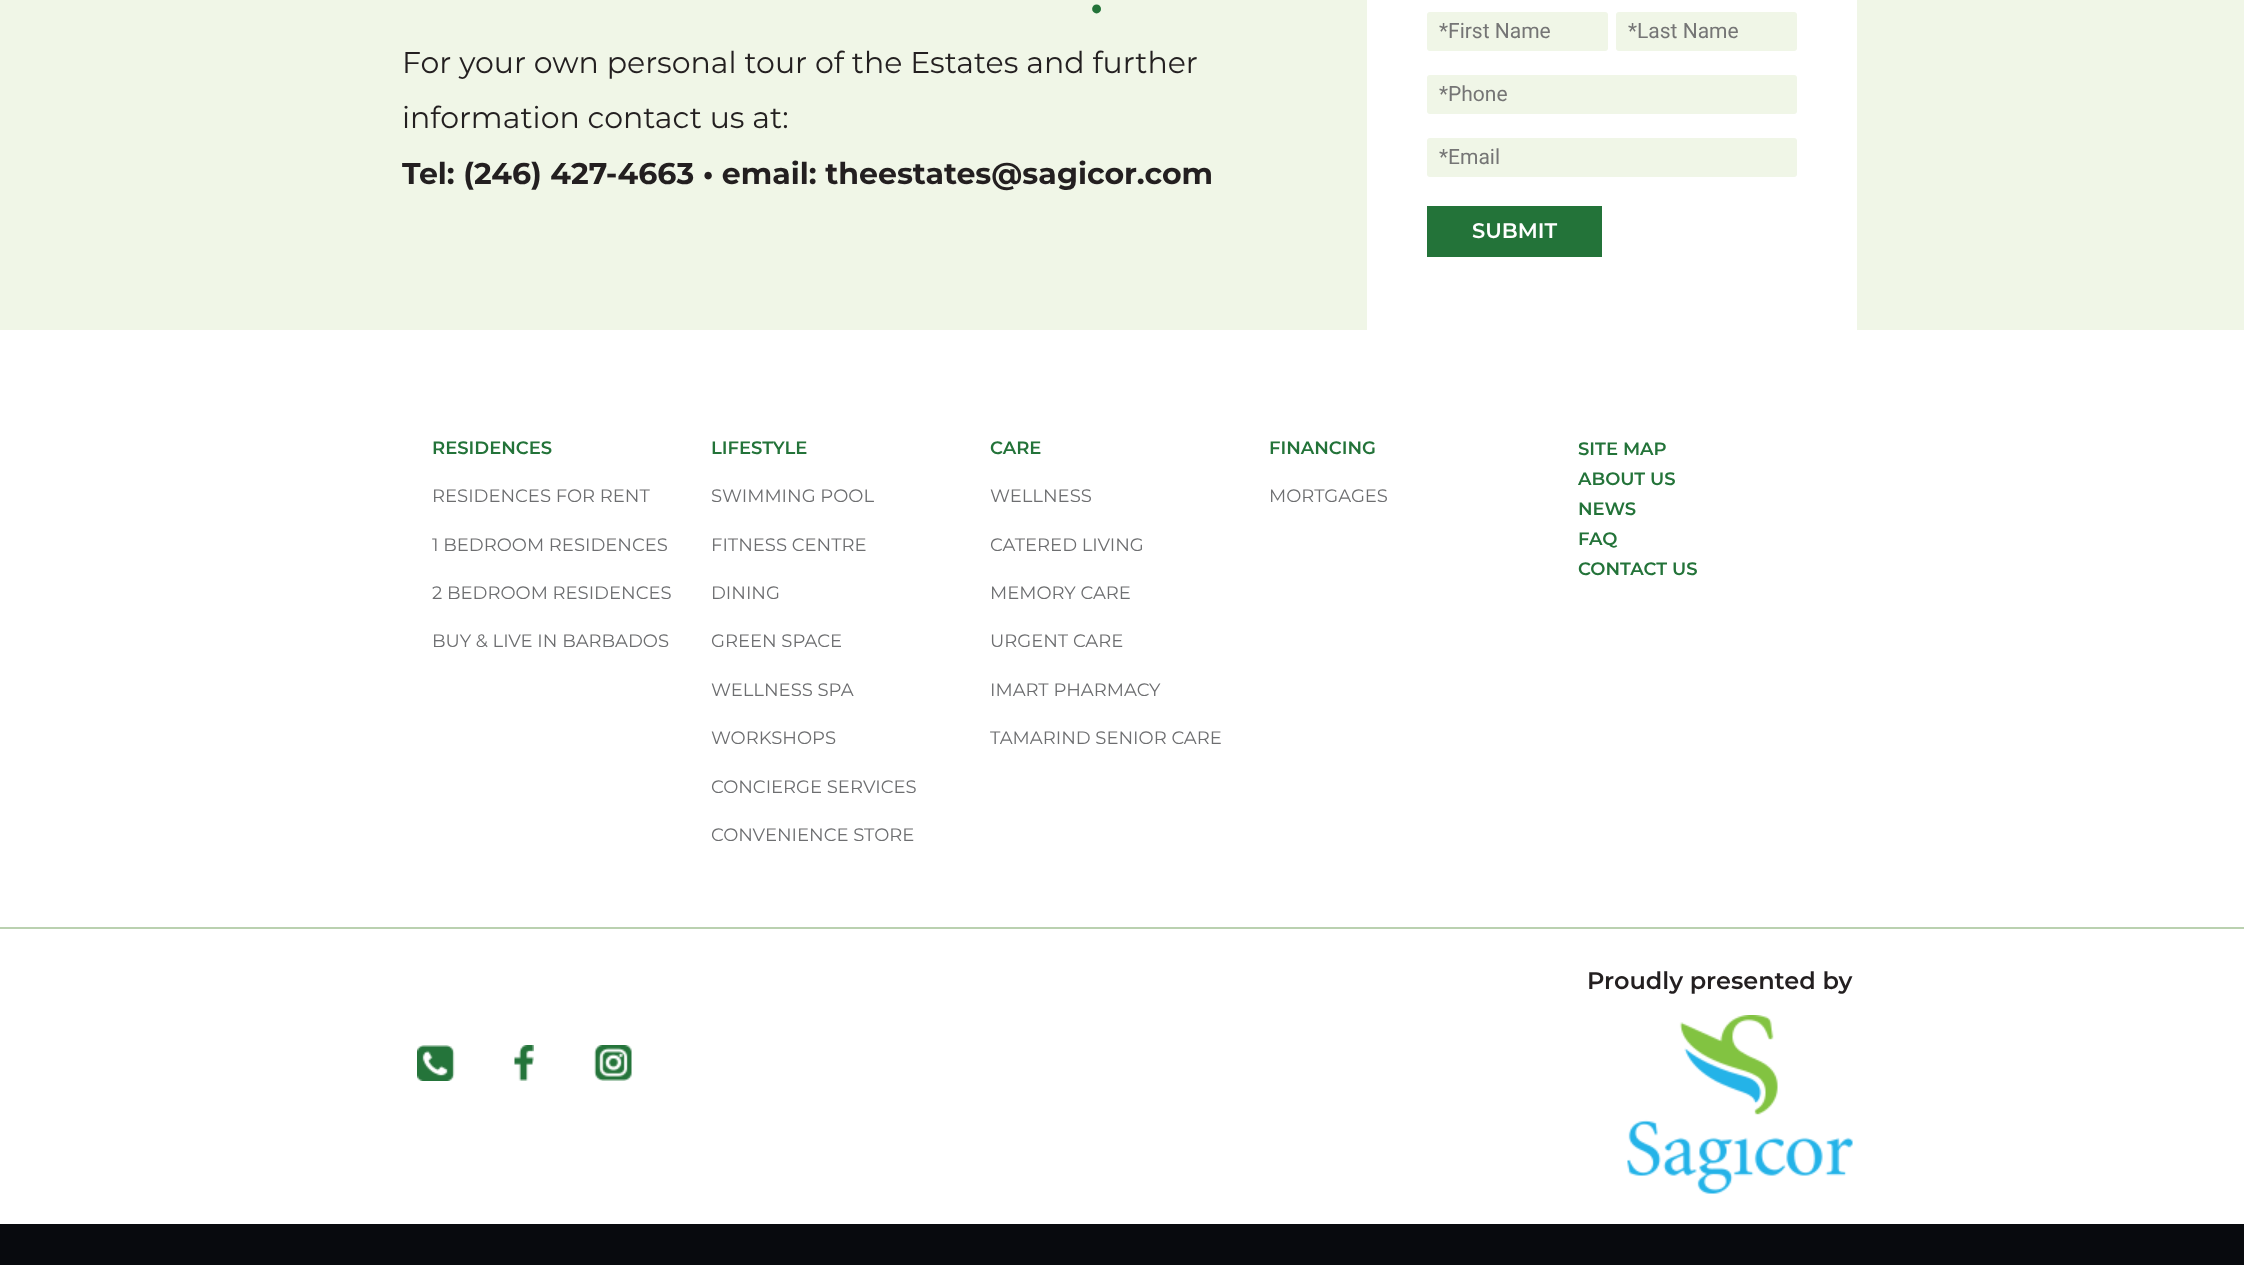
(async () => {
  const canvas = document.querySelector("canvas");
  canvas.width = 2244;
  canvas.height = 1265;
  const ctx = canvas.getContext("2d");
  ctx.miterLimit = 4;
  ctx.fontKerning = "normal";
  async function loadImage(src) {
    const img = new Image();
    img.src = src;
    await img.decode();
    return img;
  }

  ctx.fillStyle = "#ffffff";
  ctx.fillRect(0, 0, 2244, 1265);
  ctx.fillStyle = "#f0f6e7";
  ctx.fillRect(0, 0, 2244, 330);
  ctx.fillStyle = "#ffffff";
  ctx.fillRect(1367, 0, 490, 330);
  ctx.fillStyle = "#f0f6e7";
  ctx.beginPath();
  ctx.roundRect(1427, 12, 181, 39, 3);
  ctx.fill();
  ctx.beginPath();
  ctx.roundRect(1616, 12, 181, 39, 3);
  ctx.fill();
  ctx.beginPath();
  ctx.roundRect(1427, 75, 370, 39, 3);
  ctx.fill();
  ctx.beginPath();
  ctx.roundRect(1427, 138, 370, 39, 3);
  ctx.fill();
  ctx.fillStyle = "#237339";
  ctx.fillRect(1427, 206, 175, 51);
  ctx.fillStyle = "#bad1b0";
  ctx.fillRect(0, 927, 2244, 2);
  ctx.drawImage(await loadImage("img/1.png"), 1627, 1015, 226, 179);
  ctx.drawImage(await loadImage("img/2.png"), 417, 1045, 38, 36);
  ctx.drawImage(await loadImage("img/3.png"), 514, 1045, 20, 36);
  ctx.drawImage(await loadImage("img/4.png"), 594, 1045, 38, 36);
  ctx.fillStyle = "#080a0e";
  ctx.fillRect(0, 1224, 2244, 41);
  ctx.font = "600 54px Montserrat";
  ctx.fillStyle = "#237339";
  ctx.fillText(".", 1090, 13);
  ctx.font = "30px Montserrat";
  ctx.fillStyle = "#231f20";
  ctx.fillText("For your own personal tour of the Estates and further", 402, 73);
  ctx.fillText("information contact us at:", 402, 128);
  ctx.font = "bold 30px Montserrat";
  ctx.fillText("Tel: (246) 427-4663 • email: theestates@sagicor.com", 402, 184);
  ctx.font = "21px Roboto";
  ctx.fillStyle = "#757575";
  for (const [text, x, y] of [
    ["*First Name", 1439, 38],
    ["*Last Name", 1628, 38],
    ["*Phone", 1439, 101],
    ["*Email", 1439, 164],
  ]) {
    ctx.fillText(text, x, y);
  }
  ctx.font = "600 21px Montserrat";
  ctx.fillStyle = "#ffffff";
  ctx.fillText("SUBMIT", 1472, 238);
  ctx.font = "600 18px Montserrat";
  ctx.fillStyle = "#237339";
  ctx.fillText("RESIDENCES", 432, 454);
  ctx.font = "18px Montserrat";
  ctx.fillStyle = "#6d6e70";
  for (const [text, x, y] of [
    ["RESIDENCES FOR RENT", 432, 502],
    ["1 BEDROOM RESIDENCES", 432, 551],
    ["2 BEDROOM RESIDENCES", 432, 599],
    ["BUY & LIVE IN BARBADOS", 432, 647],
  ]) {
    ctx.fillText(text, x, y);
  }
  ctx.font = "600 18px Montserrat";
  ctx.fillStyle = "#237339";
  ctx.fillText("LIFESTYLE", 711, 454);
  ctx.font = "18px Montserrat";
  ctx.fillStyle = "#6d6e70";
  for (const [text, x, y] of [
    ["SWIMMING POOL", 711, 502],
    ["FITNESS CENTRE", 711, 551],
    ["DINING", 711, 599],
    ["GREEN SPACE", 711, 647],
    ["WELLNESS SPA", 711, 696],
    ["WORKSHOPS", 711, 744],
    ["CONCIERGE SERVICES", 711, 793],
    ["CONVENIENCE STORE", 711, 841],
  ]) {
    ctx.fillText(text, x, y);
  }
  ctx.font = "600 18px Montserrat";
  ctx.fillStyle = "#237339";
  ctx.fillText("CARE", 990, 454);
  ctx.font = "18px Montserrat";
  ctx.fillStyle = "#6d6e70";
  for (const [text, x, y] of [
    ["WELLNESS", 990, 502],
    ["CATERED LIVING", 990, 551],
    ["MEMORY CARE", 990, 599],
    ["URGENT CARE", 990, 647],
    ["IMART PHARMACY", 990, 696],
    ["TAMARIND SENIOR CARE", 990, 744],
  ]) {
    ctx.fillText(text, x, y);
  }
  ctx.font = "600 18px Montserrat";
  ctx.fillStyle = "#237339";
  ctx.fillText("FINANCING", 1269, 454);
  ctx.font = "18px Montserrat";
  ctx.fillStyle = "#6d6e70";
  ctx.fillText("MORTGAGES", 1269, 502);
  ctx.font = "600 18px Montserrat";
  ctx.fillStyle = "#237339";
  for (const [text, x, y] of [
    ["SITE MAP", 1578, 455],
    ["ABOUT US", 1578, 485],
    ["NEWS", 1578, 515],
    ["FAQ", 1578, 545],
    ["CONTACT US", 1578, 575],
  ]) {
    ctx.fillText(text, x, y);
  }
  ctx.font = "600 24px Montserrat";
  ctx.fillStyle = "#231f20";
  ctx.fillText("Proudly presented by", 1587, 989);
})();
